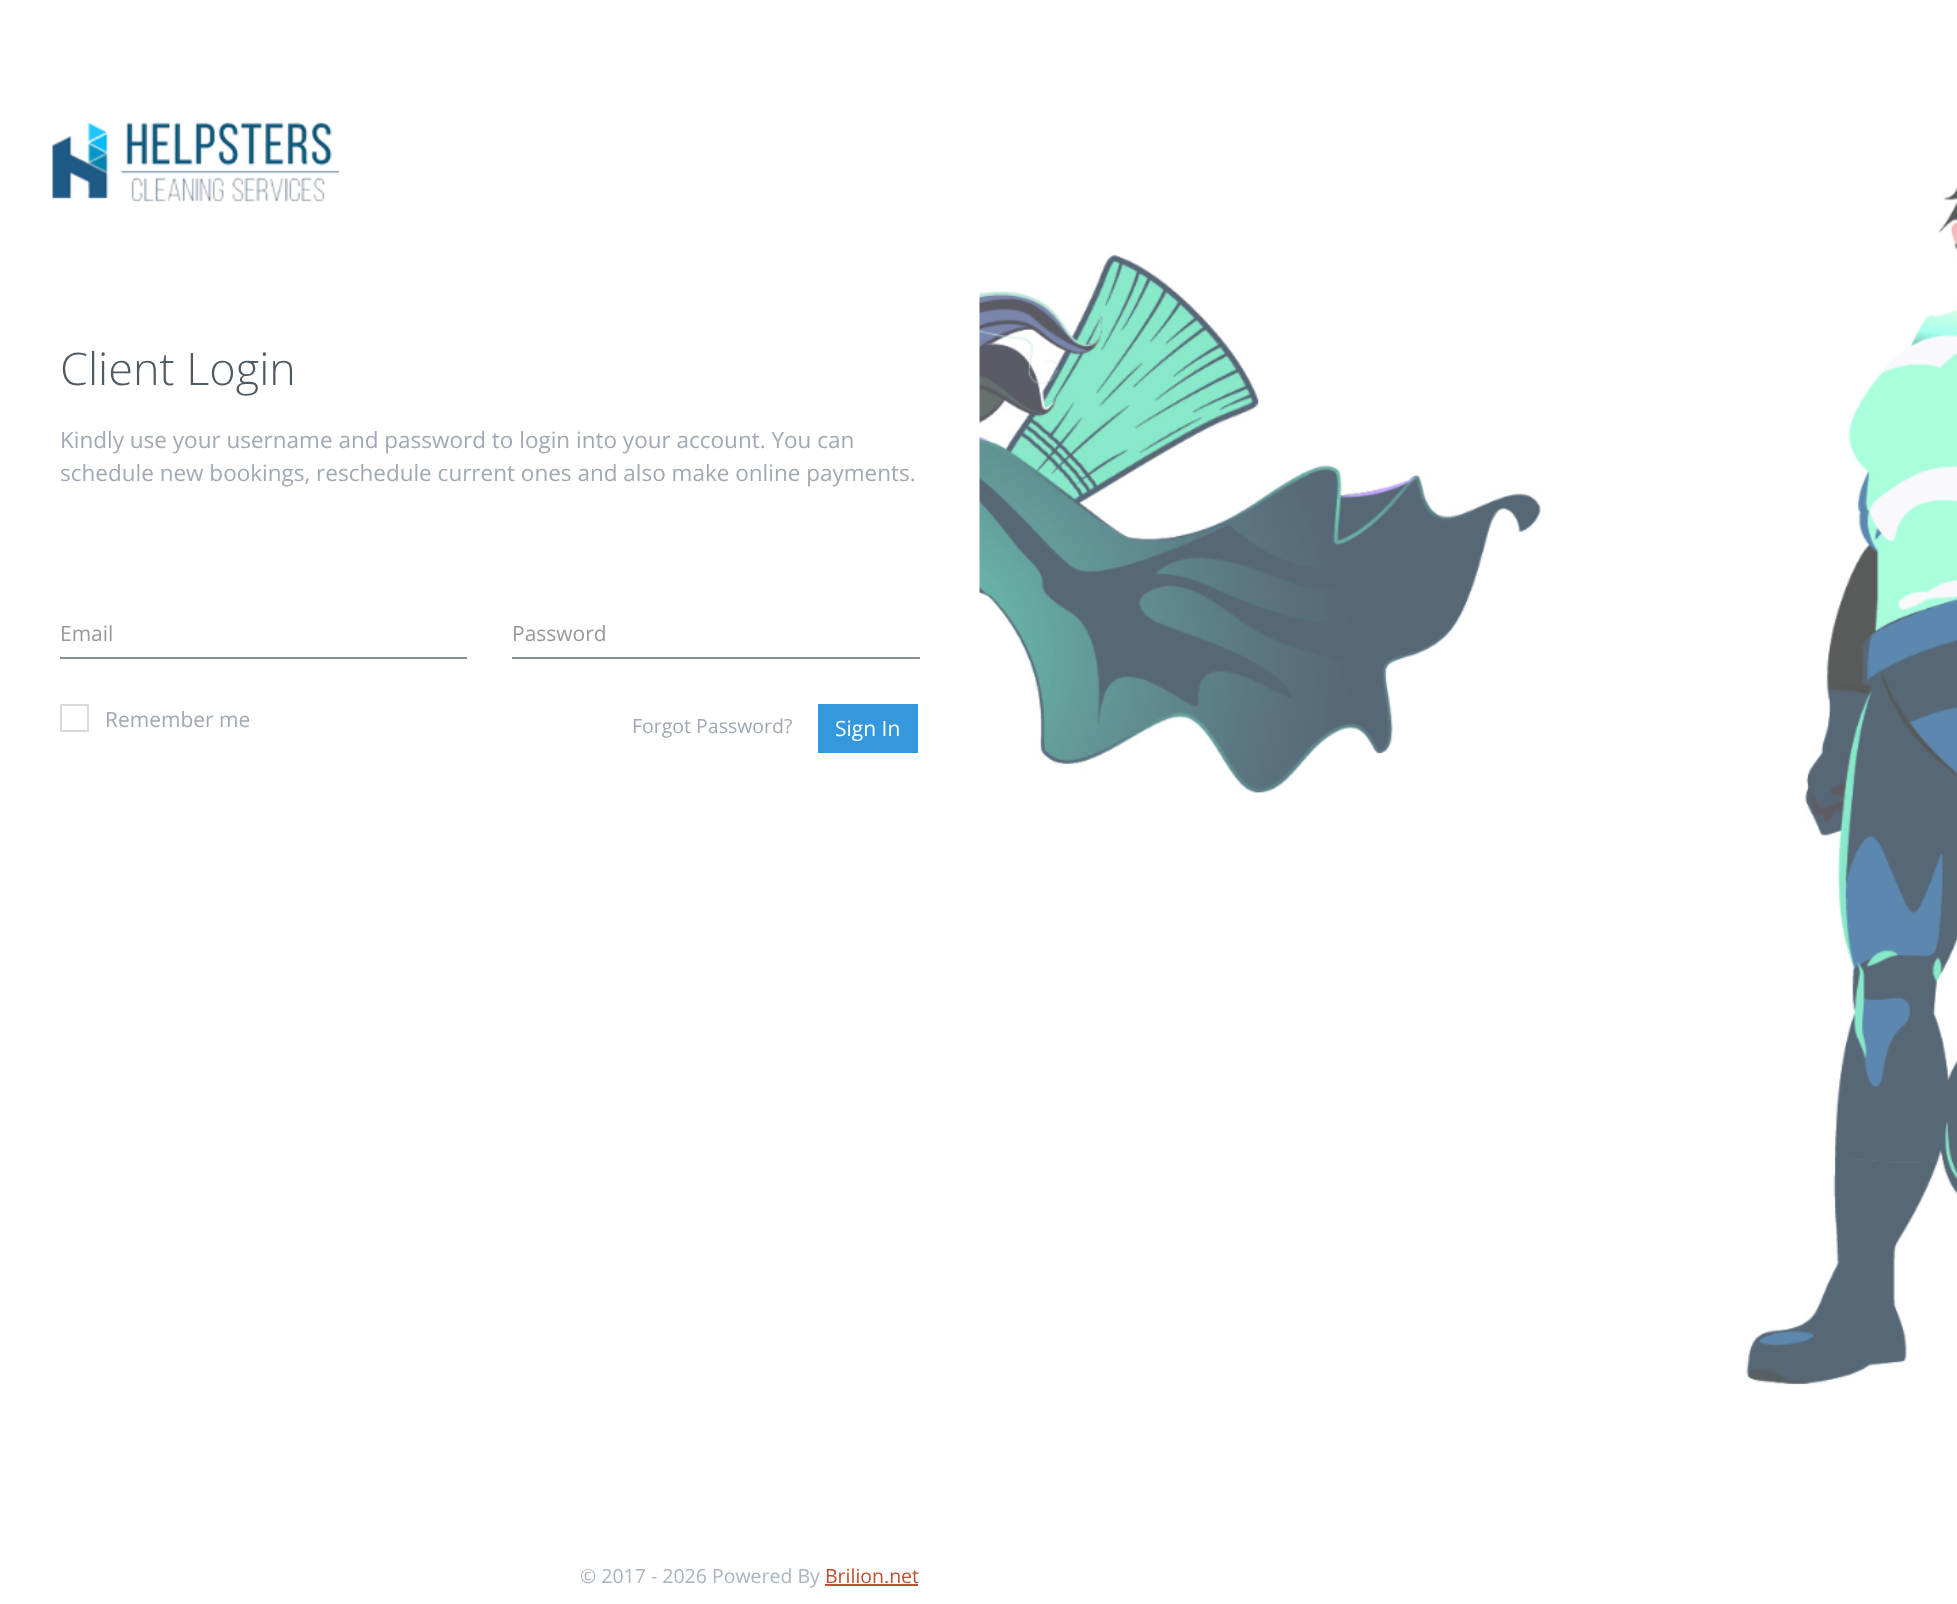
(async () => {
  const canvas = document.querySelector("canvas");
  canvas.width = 1957;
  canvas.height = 1604;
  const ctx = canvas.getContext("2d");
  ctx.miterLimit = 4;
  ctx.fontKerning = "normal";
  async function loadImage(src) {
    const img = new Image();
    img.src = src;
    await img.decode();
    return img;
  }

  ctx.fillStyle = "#ffffff";
  ctx.fillRect(0, 0, 1957, 1604);
  ctx.drawImage(await loadImage("img/1.png"), 52, 122, 287, 80);
  ctx.fillStyle = "#868e97";
  ctx.fillRect(60, 657, 407, 2);
  ctx.fillRect(512, 657, 408, 2);
  ctx.strokeStyle = "#d9d9d9";
  ctx.lineWidth = 2;
  ctx.strokeRect(61, 705, 27, 26);
  ctx.fillStyle = "#3598dc";
  ctx.fillRect(818, 704, 100, 49);
  ctx.fillStyle = "#c04d2e";
  ctx.fillRect(825, 1584, 93, 2);
  ctx.drawImage(await loadImage("img/2.png"), 979, 187, 978, 1198);
  ctx.font = "300 45px Open Sans";
  ctx.fillStyle = "#4e5a64";
  ctx.fillText("Client Login", 60, 385);
  ctx.font = "22.5px Open Sans";
  ctx.fillStyle = "#a0a9b4";
  ctx.fillText("Kindly use your username and password to login into your account. You can", 60, 448);
  ctx.fillText("schedule new bookings, reschedule current ones and also make online payments.", 60, 481);
  ctx.font = "21px Open Sans";
  ctx.fillStyle = "#999999";
  ctx.fillText("Email", 60, 641);
  ctx.fillText("Password", 512, 641);
  ctx.fillStyle = "#a0a9b4";
  ctx.fillText("Remember me", 105, 727);
  ctx.font = "19.5px Open Sans";
  ctx.fillText("Forgot Password?", 632, 733);
  ctx.font = "21px Open Sans";
  ctx.fillStyle = "#ffffff";
  ctx.fillText("Sign In", 835, 736);
  ctx.font = "19.5px Open Sans";
  ctx.fillStyle = "#a9b5be";
  ctx.fillText("© 2017 - 2026 Powered By", 580, 1583);
  ctx.fillStyle = "#c04d2e";
  ctx.fillText("Brilion.net", 825, 1583);
})();
